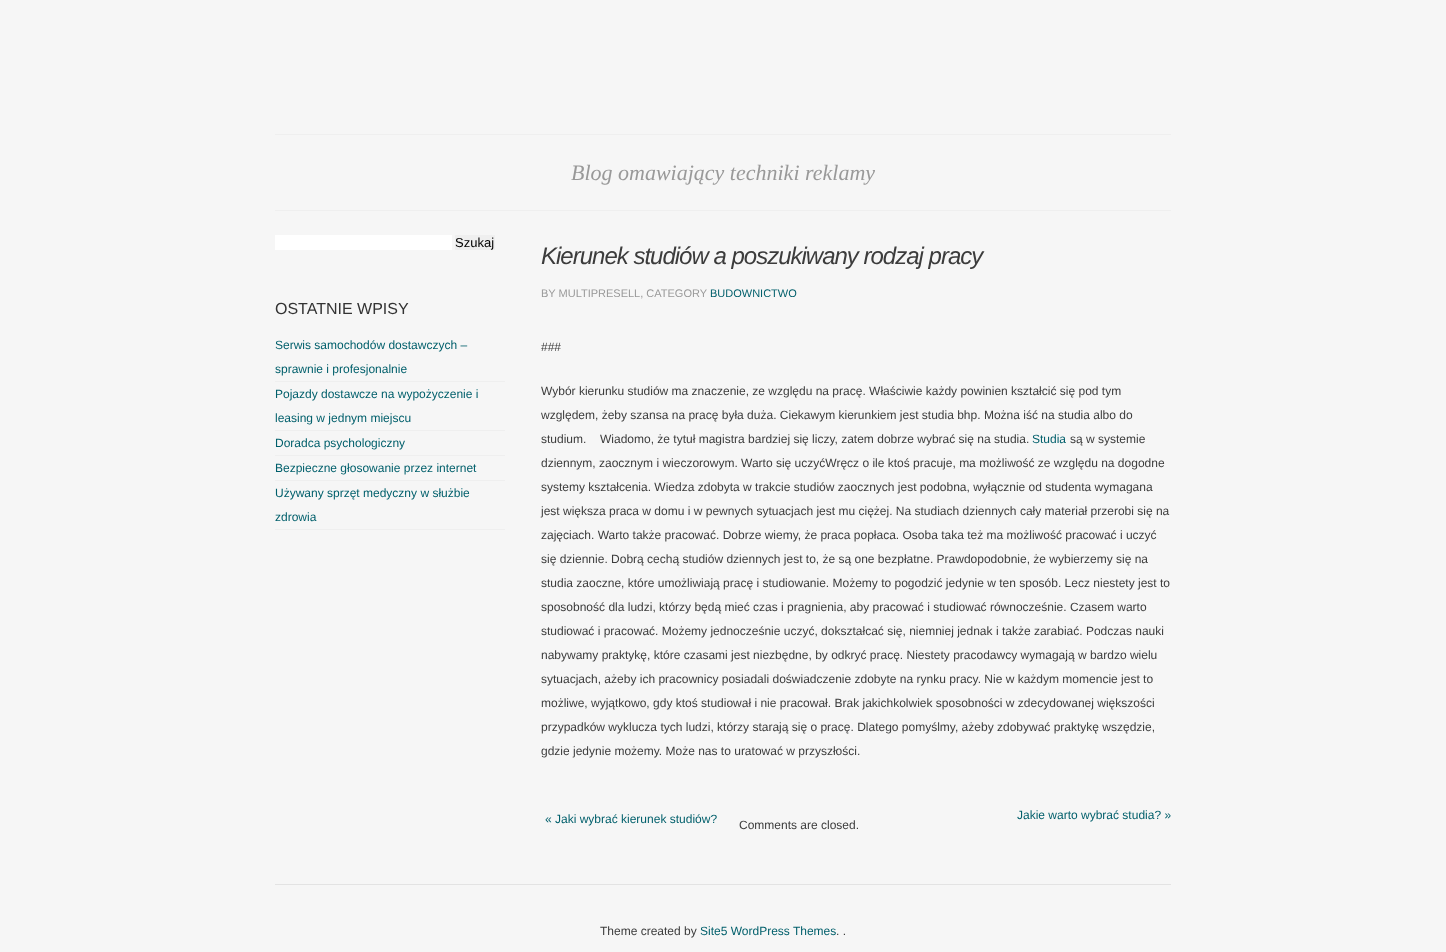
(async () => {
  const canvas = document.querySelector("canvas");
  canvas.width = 1446;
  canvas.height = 952;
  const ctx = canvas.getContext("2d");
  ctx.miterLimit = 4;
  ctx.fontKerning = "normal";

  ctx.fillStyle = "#f6f6f6";
  ctx.fillRect(0, 0, 1446, 952);
  for (const [x, y, w, h, color] of [
    [275, 134, 896, 1, "#efefef"],
    [275, 210, 896, 1, "#efefef"],
    [275, 235, 177, 15, "#ffffff"],
    [455, 235, 40, 15, "#efefef"],
    [275, 381, 230, 1, "#efefef"],
    [275, 430, 230, 1, "#efefef"],
    [275, 455, 230, 1, "#efefef"],
    [275, 480, 230, 1, "#efefef"],
    [275, 529, 230, 1, "#efefef"],
    [275, 884, 896, 1, "#e3e3e3"],
  ]) {
    ctx.fillStyle = color;
    ctx.fillRect(x, y, w, h);
  }
  ctx.font = "italic 22px Liberation Serif";
  ctx.fillStyle = "#999999";
  ctx.fillText("Blog omawiający techniki reklamy", 571, 180);
  ctx.font = "13px Liberation Sans";
  ctx.fillStyle = "#000000";
  ctx.fillText("Szukaj", 455, 247);
  ctx.font = "16px Liberation Sans";
  ctx.fillStyle = "#333333";
  ctx.fillText("OSTATNIE WPISY", 275, 314);
  ctx.font = "12px Liberation Sans";
  ctx.fillStyle = "#005f6b";
  for (const [text, x, y] of [
    ["Serwis samochodów dostawczych –", 275, 349],
    ["sprawnie i profesjonalnie", 275, 373],
    ["Pojazdy dostawcze na wypożyczenie i", 275, 398],
    ["leasing w jednym miejscu", 275, 422],
    ["Doradca psychologiczny", 275, 447],
    ["Bezpieczne głosowanie przez internet", 275, 472],
    ["Używany sprzęt medyczny w służbie", 275, 497],
    ["zdrowia", 275, 521],
  ]) {
    ctx.fillText(text, x, y);
  }
  ctx.letterSpacing = "-1px";
  ctx.font = "italic 24px Liberation Sans";
  ctx.fillStyle = "#3c3c3c";
  ctx.fillText("Kierunek studiów a poszukiwany rodzaj pracy", 541, 264);
  ctx.letterSpacing = "0px";
  ctx.font = "11px Liberation Sans";
  ctx.fillStyle = "#999999";
  ctx.fillText("BY MULTIPRESELL, CATEGORY", 541, 297);
  ctx.fillStyle = "#005f6b";
  ctx.fillText("BUDOWNICTWO", 710, 297);
  ctx.font = "12px Liberation Sans";
  ctx.fillStyle = "#3c3c3c";
  for (const [text, x, y] of [
    ["###", 541, 351],
    ["Wybór kierunku studiów ma znaczenie, ze względu na pracę. Właściwie każdy powinien kształcić się pod tym", 541, 395],
    ["względem, żeby szansa na pracę była duża. Ciekawym kierunkiem jest studia bhp. Można iść na studia albo do", 541, 419],
    ["studium.", 541, 443],
    ["Wiadomo, że tytuł magistra bardziej się liczy, zatem dobrze wybrać się na studia.", 600, 443],
  ]) {
    ctx.fillText(text, x, y);
  }
  ctx.fillStyle = "#005f6b";
  ctx.fillText("Studia", 1032, 443);
  ctx.fillStyle = "#3c3c3c";
  for (const [text, x, y] of [
    ["są w systemie", 1070, 443],
    ["dziennym, zaocznym i wieczorowym. Warto się uczyćWręcz o ile ktoś pracuje, ma możliwość ze względu na dogodne", 541, 467],
    ["systemy kształcenia. Wiedza zdobyta w trakcie studiów zaocznych jest podobna, wyłącznie od studenta wymagana", 541, 491],
    ["jest większa praca w domu i w pewnych sytuacjach jest mu ciężej. Na studiach dziennych cały materiał przerobi się na", 541, 515],
    ["zajęciach. Warto także pracować. Dobrze wiemy, że praca popłaca. Osoba taka też ma możliwość pracować i uczyć", 541, 539],
    ["się dziennie. Dobrą cechą studiów dziennych jest to, że są one bezpłatne. Prawdopodobnie, że wybierzemy się na", 541, 563],
    ["studia zaoczne, które umożliwiają pracę i studiowanie. Możemy to pogodzić jedynie w ten sposób. Lecz niestety jest to", 541, 587],
    ["sposobność dla ludzi, którzy będą mieć czas i pragnienia, aby pracować i studiować równocześnie. Czasem warto", 541, 611],
    ["studiować i pracować. Możemy jednocześnie uczyć, dokształcać się, niemniej jednak i także zarabiać. Podczas nauki", 541, 635],
    ["nabywamy praktykę, które czasami jest niezbędne, by odkryć pracę. Niestety pracodawcy wymagają w bardzo wielu", 541, 659],
    ["sytuacjach, ażeby ich pracownicy posiadali doświadczenie zdobyte na rynku pracy. Nie w każdym momencie jest to", 541, 683],
    ["możliwe, wyjątkowo, gdy ktoś studiował i nie pracował. Brak jakichkolwiek sposobności w zdecydowanej większości", 541, 707],
    ["przypadków wyklucza tych ludzi, którzy starają się o pracę. Dlatego pomyślmy, ażeby zdobywać praktykę wszędzie,", 541, 731],
    ["gdzie jedynie możemy. Może nas to uratować w przyszłości.", 541, 755],
  ]) {
    ctx.fillText(text, x, y);
  }
  ctx.fillStyle = "#005f6b";
  ctx.fillText("« Jaki wybrać kierunek studiów?", 545, 823);
  ctx.fillText("Jakie warto wybrać studia? »", 1017, 819);
  ctx.fillStyle = "#3c3c3c";
  ctx.fillText("Comments are closed.", 739, 829);
  ctx.fillText("Theme created by", 600, 935);
  ctx.fillStyle = "#005f6b";
  ctx.fillText("Site5 WordPress Themes", 700, 935);
  ctx.fillStyle = "#3c3c3c";
  ctx.fillText(". .", 836, 935);
})();
